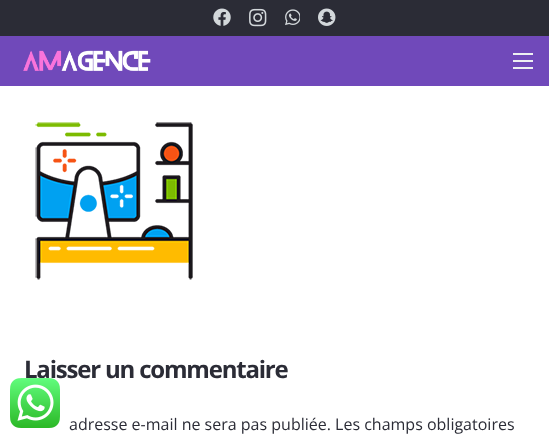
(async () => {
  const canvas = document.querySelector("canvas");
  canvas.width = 549;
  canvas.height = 438;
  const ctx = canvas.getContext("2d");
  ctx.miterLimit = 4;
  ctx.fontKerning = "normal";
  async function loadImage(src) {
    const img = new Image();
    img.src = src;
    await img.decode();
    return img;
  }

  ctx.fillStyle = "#ffffff";
  ctx.fillRect(0, 0, 549, 438);
  ctx.fillStyle = "#2b2c36";
  ctx.fillRect(0, 0, 549, 36);
  ctx.drawImage(await loadImage("img/1.png"), 213, 8, 18, 18);
  ctx.drawImage(await loadImage("img/2.png"), 249, 8, 18, 19);
  ctx.drawImage(await loadImage("img/3.png"), 285, 9, 15, 17);
  ctx.drawImage(await loadImage("img/4.png"), 318, 8, 18, 18);
  ctx.fillStyle = "#7049ba";
  ctx.fillRect(0, 36, 549, 50);
  ctx.drawImage(await loadImage("img/5.png"), 23, 50, 128, 21);
  for (const [x, y, w, h, color] of [
    [513, 60, 20, 2, "#edf0f2"],
    [513, 53, 20, 2, "#edf0f2"],
    [513, 67, 20, 2, "#edf0f2"],
  ]) {
    ctx.fillStyle = color;
    ctx.fillRect(x, y, w, h);
  }
  ctx.drawImage(await loadImage("img/6.png"), 35, 122, 158, 158);
  ctx.letterSpacing = "-1.2px";
  ctx.font = "bold 24px Open Sans";
  ctx.fillStyle = "#2b2c36";
  ctx.fillText("Laisser un commentaire", 24, 378);
  ctx.letterSpacing = "0px";
  ctx.font = "16px Open Sans";
  ctx.fillText("adresse e-mail ne sera pas publiée. Les champs obligatoires", 69, 430);
  ctx.drawImage(await loadImage("img/7.png"), 10, 378, 50, 50);
})();
